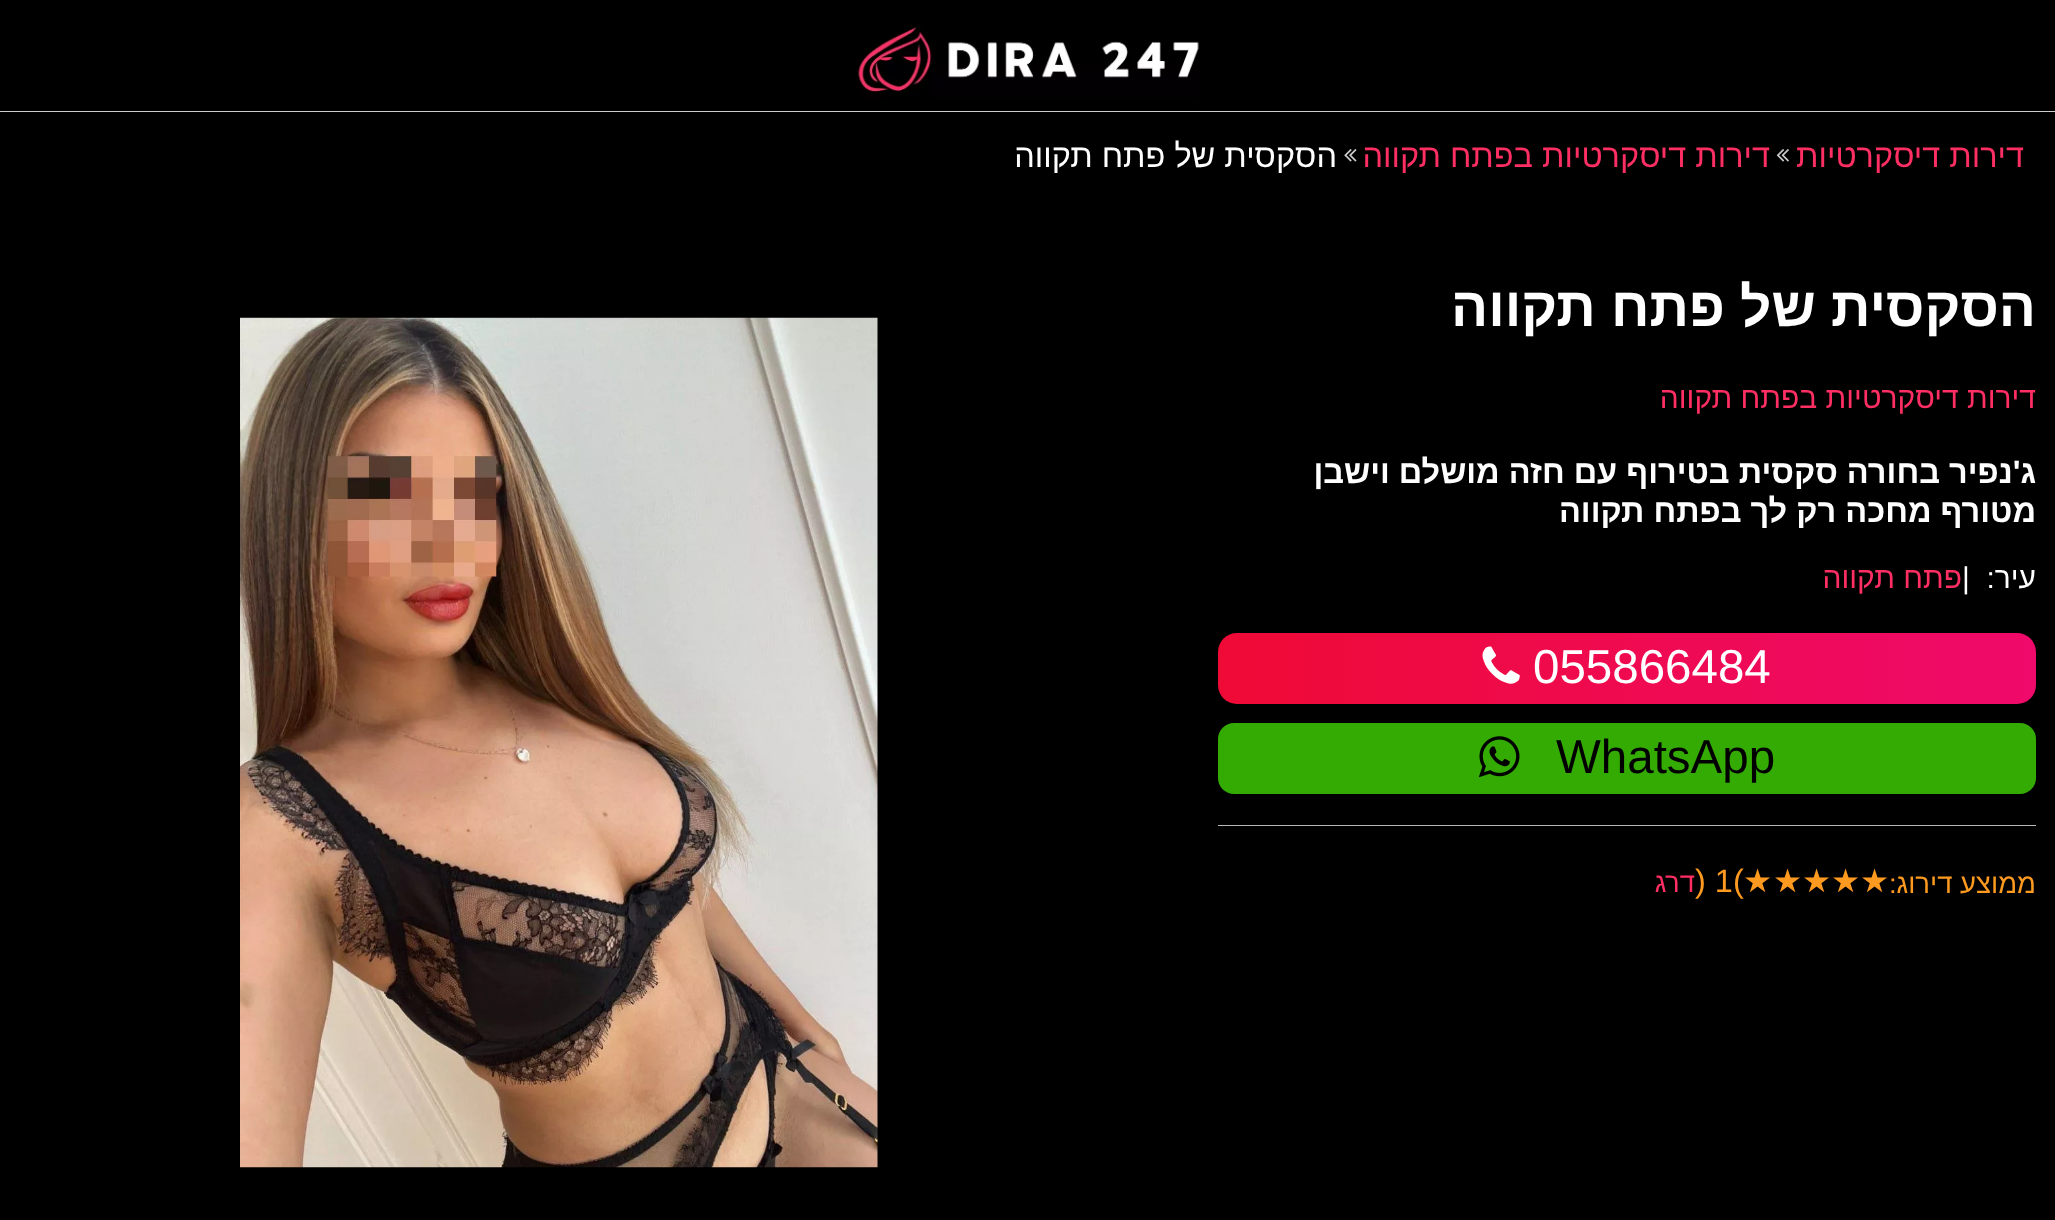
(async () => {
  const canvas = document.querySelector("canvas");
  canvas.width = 2055;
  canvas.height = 1220;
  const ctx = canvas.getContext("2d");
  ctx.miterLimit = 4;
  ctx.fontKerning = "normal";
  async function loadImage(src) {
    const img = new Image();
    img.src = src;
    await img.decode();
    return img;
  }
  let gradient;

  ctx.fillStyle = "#000000";
  ctx.fillRect(0, 0, 2055, 1220);
  ctx.fillStyle = "#cccccc";
  ctx.fillRect(0, 111, 2055, 1);
  ctx.drawImage(await loadImage("img/1.png"), 857, 26, 342, 72);
  ctx.drawImage(await loadImage("img/2.png"), 1776, 149, 13, 13);
  ctx.drawImage(await loadImage("img/3.png"), 1344, 149, 13, 13);
  gradient = ctx.createLinearGradient(1218, 668, 2036, 668);
  gradient.addColorStop(0, "#ef0a36");
  gradient.addColorStop(1, "#ef0a6b");
  ctx.fillStyle = gradient;
  ctx.beginPath();
  ctx.roundRect(1218, 633, 818, 71, 19);
  ctx.fill();
  ctx.drawImage(await loadImage("img/4.png"), 1482, 646, 38, 38);
  ctx.fillStyle = "#34ab03";
  ctx.beginPath();
  ctx.roundRect(1218, 723, 818, 71, 16);
  ctx.fill();
  ctx.drawImage(await loadImage("img/5.png"), 1478, 736, 42, 42);
  ctx.fillStyle = "#b8b8b8";
  ctx.fillRect(1218, 825, 818, 1);
  ctx.drawImage(await loadImage("img/6.png"), 240, 317, 638, 851);
  ctx.direction = "rtl";
  ctx.font = "32.5px Liberation Sans";
  ctx.fillStyle = "#ff2e63";
  ctx.fillText("דירות דיסקרטיות", 2024, 167);
  ctx.fillText("דירות דיסקרטיות בפתח תקווה", 1770, 167);
  ctx.fillStyle = "#ffffff";
  ctx.fillText("הסקסית של פתח תקווה", 1337, 167);
  ctx.font = "bold 55px Liberation Sans";
  ctx.fillText("הסקסית של פתח תקווה", 2036, 326);
  ctx.font = "30px Liberation Sans";
  ctx.fillStyle = "#ff2e63";
  ctx.fillText("דירות דיסקרטיות בפתח תקווה", 2036, 408);
  ctx.font = "bold 32.5px Liberation Sans";
  ctx.fillStyle = "#ffffff";
  ctx.fillText("ג'נפיר בחורה סקסית בטירוף עם חזה מושלם וישבן", 2036, 483);
  ctx.fillText("מטורף מחכה רק לך בפתח תקווה", 2036, 522);
  ctx.font = "30px Liberation Sans";
  ctx.fillText("עיר:", 2036, 588);
  ctx.direction = "ltr";
  ctx.fillText("|", 1962, 588);
  ctx.direction = "rtl";
  ctx.fillStyle = "#ff2e63";
  ctx.fillText("פתח תקווה", 1962, 588);
  ctx.direction = "ltr";
  ctx.font = "47.5px Liberation Sans";
  ctx.fillStyle = "#ffffff";
  ctx.fillText("055866484", 1533, 683);
  ctx.fillStyle = "#000000";
  ctx.fillText("WhatsApp", 1556, 773);
  ctx.direction = "rtl";
  ctx.font = "27.5px Liberation Sans";
  ctx.fillStyle = "#fd9a1f";
  ctx.fillText("ממוצע דירוג:", 2036, 893);
  ctx.direction = "ltr";
  ctx.font = "32.5px DejaVu Sans";
  for (const [text, x, y] of [
    ["★", 1860, 892],
    ["★", 1831, 892],
    ["★", 1802, 892],
    ["★", 1773, 892],
    ["★", 1743, 892],
  ]) {
    ctx.fillText(text, x, y);
  }
  ctx.font = "32.5px Liberation Sans";
  ctx.fillText(") 1(", 1695, 892);
  ctx.direction = "rtl";
  ctx.font = "27.5px Liberation Sans";
  ctx.fillStyle = "#ff2e63";
  ctx.fillText("דרג", 1695, 892);
})();
